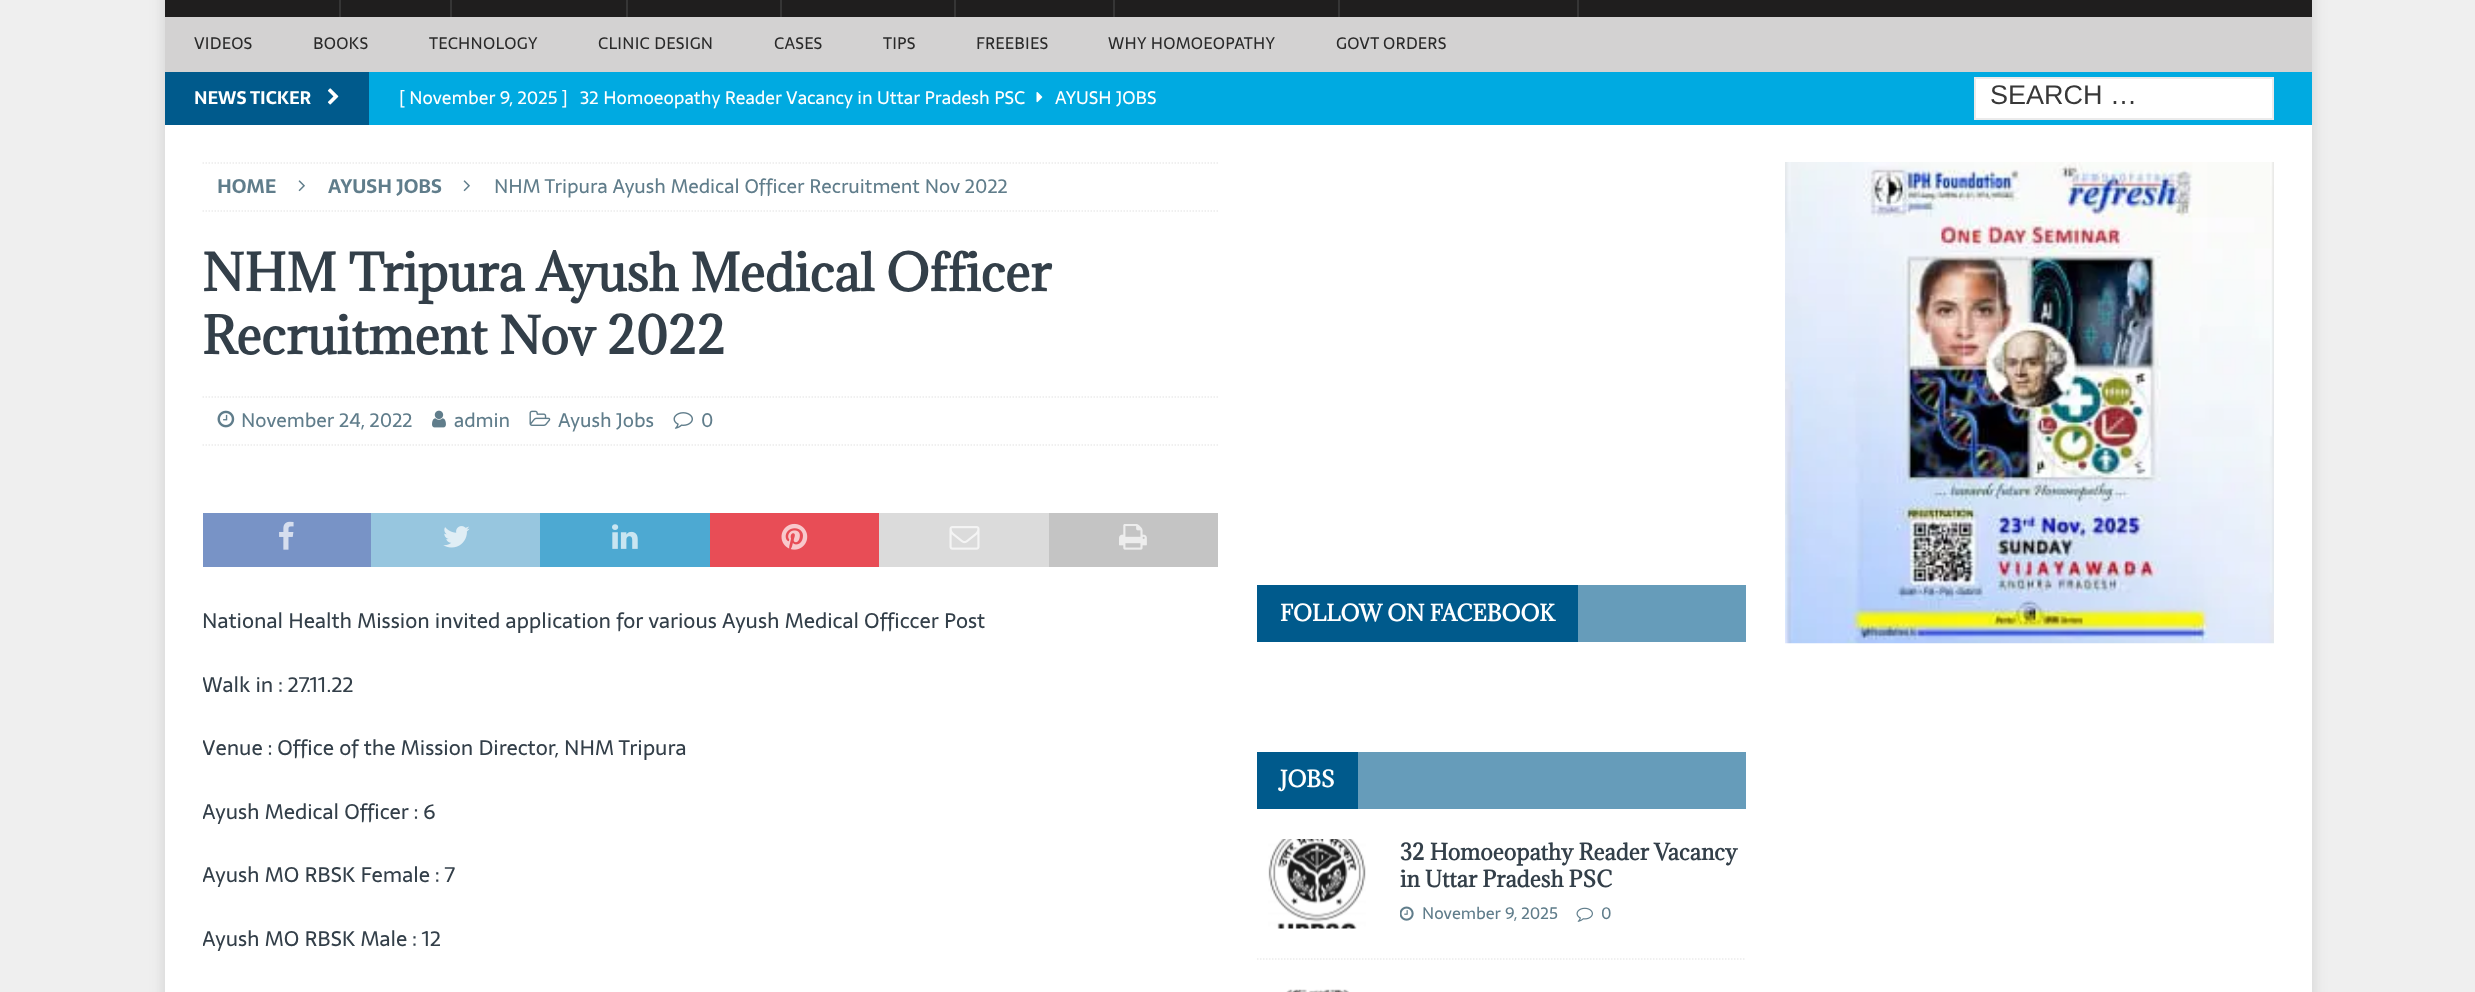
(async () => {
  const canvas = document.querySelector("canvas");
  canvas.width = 2475;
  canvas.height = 992;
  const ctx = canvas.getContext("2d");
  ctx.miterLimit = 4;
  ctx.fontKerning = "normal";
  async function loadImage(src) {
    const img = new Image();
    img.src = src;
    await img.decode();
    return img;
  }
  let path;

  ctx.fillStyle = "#efefef";
  ctx.fillRect(0, 0, 2475, 992);
  ctx.fillStyle = "rgba(50, 50, 50, 0.17)";
  ctx.filter = "blur(7.5px)";
  ctx.beginPath();
  ctx.rect(165, -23, 2147, 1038);
  ctx.fill();
  ctx.filter = "none";
  for (const [x, y, w, h, color] of [
    [165, 0, 2147, 17, "#1f1e1e"],
    [339, 0, 2, 17, "#353535"],
    [450, 0, 2, 17, "#353535"],
    [626, 0, 2, 17, "#353535"],
    [780, 0, 2, 17, "#353535"],
    [954, 0, 2, 17, "#353535"],
    [1113, 0, 2, 17, "#353535"],
    [1338, 0, 2, 17, "#353535"],
    [1577, 0, 2, 17, "#353535"],
    [165, 17, 2147, 55, "#d3d2d2"],
    [369, 72, 1943, 53, "#00aae1"],
    [165, 72, 204, 53, "#005a8c"],
  ]) {
    ctx.fillStyle = color;
    ctx.fillRect(x, y, w, h);
  }
  ctx.drawImage(await loadImage("img/1.png"), 327, 88, 12, 17);
  ctx.drawImage(await loadImage("img/2.png"), 1036, 92, 7, 11);
  ctx.fillStyle = "#ffffff";
  ctx.beginPath();
  ctx.rect(1975, 78, 298, 41);
  ctx.fill();
  ctx.strokeStyle = "#ebebeb";
  ctx.lineWidth = 2;
  ctx.stroke();
  ctx.fillRect(165, 125, 2147, 867);
  path = new Path2D("M202.5 163H1219.5");
  ctx.lineWidth = 1.5;
  ctx.setLineDash([1.5, 1.5]);
  ctx.stroke(path);
  path = new Path2D("M202.5 211H1219.5");
  ctx.stroke(path);
  ctx.drawImage(await loadImage("img/3.png"), 298, 180, 7, 12);
  ctx.drawImage(await loadImage("img/3.png"), 463, 180, 7, 12);
  path = new Path2D("M202.5 397H1219.5");
  ctx.stroke(path);
  path = new Path2D("M202.5 445H1219.5");
  ctx.stroke(path);
  ctx.drawImage(await loadImage("img/4.png"), 217, 410, 18, 18);
  ctx.drawImage(await loadImage("img/5.png"), 432, 410, 14, 18);
  ctx.drawImage(await loadImage("img/6.png"), 529, 410, 22, 16);
  ctx.drawImage(await loadImage("img/7.png"), 673, 412, 20, 17);
  ctx.fillStyle = "#7893c6";
  ctx.fillRect(203, 513, 168, 54);
  ctx.drawImage(await loadImage("img/8.png"), 279, 521, 15, 29);
  ctx.fillStyle = "#97c6df";
  ctx.fillRect(371, 513, 169, 54);
  ctx.drawImage(await loadImage("img/9.png"), 443, 526, 27, 22);
  ctx.fillStyle = "#4da9d2";
  ctx.fillRect(540, 513, 170, 54);
  ctx.drawImage(await loadImage("img/10.png"), 612, 524, 26, 25);
  ctx.fillStyle = "#e84d56";
  ctx.fillRect(710, 513, 169, 54);
  ctx.drawImage(await loadImage("img/11.png"), 781, 523, 27, 27);
  ctx.fillStyle = "#dbdbdb";
  ctx.fillRect(879, 513, 170, 54);
  ctx.drawImage(await loadImage("img/12.png"), 949, 526, 31, 24);
  ctx.fillStyle = "#c4c4c4";
  ctx.fillRect(1049, 513, 169, 54);
  ctx.drawImage(await loadImage("img/13.png"), 1119, 524, 28, 26);
  for (const [x, y, w, h, color] of [
    [1578, 585, 168, 57, "#669cba"],
    [1257, 585, 321, 57, "#005a8c"],
    [1358, 752, 388, 57, "#669cba"],
    [1257, 752, 101, 57, "#005a8c"],
  ]) {
    ctx.fillStyle = color;
    ctx.fillRect(x, y, w, h);
  }
  path = new Path2D("M1257 959H1746");
  ctx.stroke(path);
  ctx.drawImage(await loadImage("img/14.png"), 1268, 839, 98, 90);
  ctx.drawImage(await loadImage("img/15.png"), 1400, 906, 14, 15);
  ctx.drawImage(await loadImage("img/16.png"), 1576, 907, 17, 15);
  ctx.drawImage(await loadImage("img/17.png"), 1286, 989, 63, 3);
  ctx.drawImage(await loadImage("img/18.png"), 1785, 162, 489, 482);
  ctx.letterSpacing = "0.25px";
  ctx.font = "16.5px Sarala";
  ctx.fillStyle = "#2a2a2a";
  for (const [text, x, y] of [
    ["VIDEOS", 194, 49],
    ["BOOKS", 313, 49],
    ["TECHNOLOGY", 429, 49],
    ["CLINIC DESIGN", 598, 49],
    ["CASES", 774, 49],
    ["TIPS", 883, 49],
    ["FREEBIES", 976, 49],
    ["WHY HOMOEOPATHY", 1108, 49],
    ["GOVT ORDERS", 1336, 49],
  ]) {
    ctx.fillText(text, x, y);
  }
  ctx.letterSpacing = "0px";
  ctx.font = "bold 18px Sarala";
  ctx.fillStyle = "#ffffff";
  ctx.fillText("NEWS TICKER", 194, 104);
  ctx.font = "18px Sarala";
  for (const [text, x, y] of [
    ["[ November 9, 2025 ]", 399, 104],
    ["32 Homoeopathy Reader Vacancy in Uttar Pradesh PSC", 580, 104],
    ["AYUSH JOBS", 1055, 104],
  ]) {
    ctx.fillText(text, x, y);
  }
  ctx.font = "27px Liberation Sans";
  ctx.fillStyle = "#383838";
  ctx.fillText("SEARCH …", 1990, 104);
  ctx.font = "bold 19.5px Sarala";
  ctx.fillStyle = "#607d8b";
  ctx.fillText("HOME", 217, 193);
  ctx.fillText("AYUSH JOBS", 328, 193);
  ctx.font = "19.5px Sarala";
  ctx.fillText("NHM Tripura Ayush Medical Officer Recruitment Nov 2022", 494, 193);
  ctx.font = "bold 48px Adamina";
  ctx.fillStyle = "#333f49";
  ctx.fillText("NHM Tripura Ayush Medical Officer", 202, 291);
  ctx.fillText("Recruitment Nov 2022", 202, 354);
  ctx.font = "19.5px Sarala";
  ctx.fillStyle = "#607d8b";
  for (const [text, x, y] of [
    ["November 24, 2022", 241, 427],
    ["admin", 454, 427],
    ["Ayush Jobs", 558, 427],
    ["0", 701, 427],
  ]) {
    ctx.fillText(text, x, y);
  }
  ctx.font = "21px Sarala";
  ctx.fillStyle = "#333f49";
  ctx.fillText("National Health Mission invited application for various Ayush Medical Officcer Post", 202, 628);
  ctx.save();
  ctx.beginPath();
  ctx.rect(203, 162, 1017, 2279);
  ctx.clip();
  for (const [text, x, y] of [
    ["Walk in : 27.11.22", 202, 692],
    ["Venue : Office of the Mission Director, NHM Tripura", 202, 755],
    ["Ayush Medical Officer : 6", 202, 819],
    ["Ayush MO RBSK Female : 7", 202, 882],
    ["Ayush MO RBSK Male : 12", 202, 946],
  ]) {
    ctx.fillText(text, x, y);
  }
  ctx.restore();
  ctx.font = "bold 21px Adamina";
  ctx.fillStyle = "#ffffff";
  ctx.fillText("FOLLOW ON FACEBOOK", 1280, 621);
  ctx.fillText("JOBS", 1280, 787);
  ctx.fillStyle = "#333f49";
  ctx.fillText("32 Homoeopathy Reader Vacancy", 1400, 860);
  ctx.fillText("in Uttar Pradesh PSC", 1400, 887);
  ctx.font = "16.5px Sarala";
  ctx.fillStyle = "#607d8b";
  ctx.fillText("November 9, 2025", 1422, 919);
  ctx.fillText("0", 1601, 919);
})();
